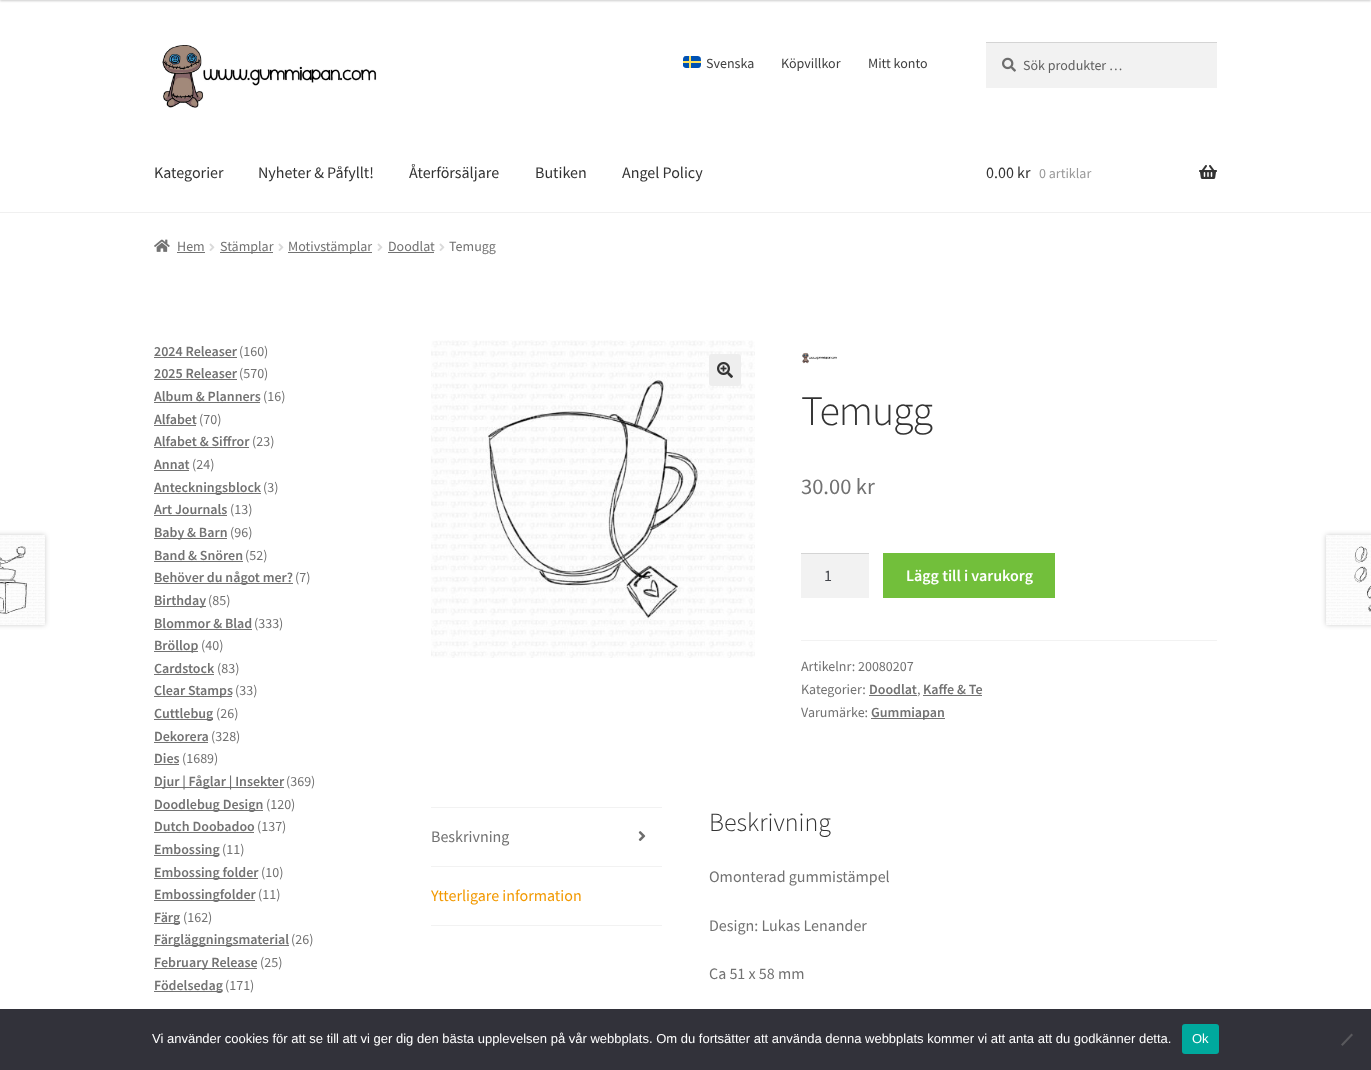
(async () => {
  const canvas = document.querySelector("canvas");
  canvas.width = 1371;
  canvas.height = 1070;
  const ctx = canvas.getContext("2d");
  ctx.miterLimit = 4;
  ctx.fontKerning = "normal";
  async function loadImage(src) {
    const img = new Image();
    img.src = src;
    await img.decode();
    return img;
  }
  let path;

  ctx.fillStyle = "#ffffff";
  ctx.fillRect(0, 0, 1371, 1070);
  ctx.fillStyle = "rgba(0, 0, 0, 0.2)";
  ctx.filter = "blur(1px)";
  ctx.beginPath();
  ctx.rect(0, -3, 1371, 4);
  ctx.fill();
  ctx.filter = "none";
  ctx.fillStyle = "#f0f0f0";
  ctx.fillRect(0, 212, 1371, 1);
  ctx.drawImage(await loadImage("img/1.png"), 162, 45, 215, 63);
  ctx.save();
  ctx.beginPath();
  ctx.rect(683, 56, 18, 12);
  ctx.clip();
  ctx.fillStyle = "#0052b4";
  path = new Path2D("M686 56H696C701 56 701 57.5 701 62C701 64.5 701.5 68 698 68H688C681.5 68 683 65 683 60C683 58 683.5 56 686 56Z");
  ctx.fill(path);
  ctx.restore();
  for (const [x, y, w, h, color] of [
    [689, 56, 2, 12, "#ffe15a"],
    [683, 61, 18, 2, "#ffe15a"],
    [986, 43, 231, 45, "#f2f2f2"],
  ]) {
    ctx.fillStyle = color;
    ctx.fillRect(x, y, w, h);
  }
  ctx.drawImage(await loadImage("img/2.png"), 1002, 57, 14, 15);
  ctx.fillStyle = "#d4d4d4";
  ctx.fillRect(986, 42, 231, 1);
  ctx.drawImage(await loadImage("img/3.png"), 1199, 165, 18, 14);
  ctx.drawImage(await loadImage("img/4.png"), 154, 239, 16, 13);
  ctx.fillStyle = "#727272";
  ctx.fillRect(177, 252, 28, 1);
  ctx.drawImage(await loadImage("img/5.png"), 209, 243, 6, 8);
  ctx.fillRect(220, 252, 53, 1);
  ctx.drawImage(await loadImage("img/5.png"), 278, 243, 6, 8);
  ctx.fillRect(288, 252, 84, 1);
  ctx.drawImage(await loadImage("img/5.png"), 377, 243, 6, 8);
  ctx.fillRect(388, 252, 46, 1);
  ctx.drawImage(await loadImage("img/5.png"), 439, 243, 6, 8);
  for (const [x, y, w, h, color] of [
    [154, 357, 83, 1, "#727272"],
    [154, 379, 83, 1, "#727272"],
    [154, 402, 106, 1, "#727272"],
    [154, 425, 42, 1, "#727272"],
    [154, 447, 95, 1, "#727272"],
    [154, 470, 35, 1, "#727272"],
    [154, 493, 107, 1, "#727272"],
    [154, 515, 73, 1, "#727272"],
    [154, 538, 73, 1, "#727272"],
    [154, 561, 89, 1, "#727272"],
    [154, 583, 139, 1, "#727272"],
    [154, 606, 52, 1, "#727272"],
    [154, 629, 98, 1, "#727272"],
    [154, 651, 44, 1, "#727272"],
    [154, 674, 60, 1, "#727272"],
    [154, 696, 78, 1, "#727272"],
    [154, 719, 59, 1, "#727272"],
    [154, 742, 54, 1, "#727272"],
    [154, 764, 25, 1, "#727272"],
    [154, 787, 130, 1, "#727272"],
    [154, 810, 109, 1, "#727272"],
    [154, 832, 100, 1, "#727272"],
    [154, 855, 65, 1, "#727272"],
    [154, 878, 104, 1, "#727272"],
    [154, 900, 101, 1, "#727272"],
    [154, 923, 26, 1, "#727272"],
    [154, 945, 135, 1, "#727272"],
    [154, 968, 103, 1, "#727272"],
    [154, 991, 68, 1, "#727272"],
  ]) {
    ctx.fillStyle = color;
    ctx.fillRect(x, y, w, h);
  }
  ctx.drawImage(await loadImage("img/6.png"), 431, 340, 324, 318);
  ctx.fillStyle = "#eeeeee";
  ctx.beginPath();
  ctx.roundRect(709, 354, 32, 32, 3);
  ctx.fill();
  ctx.drawImage(await loadImage("img/7.png"), 717, 362, 16, 16);
  ctx.drawImage(await loadImage("img/8.png"), 802, 352, 35, 12);
  for (const [x, y, w, h, color] of [
    [801, 554, 68, 44, "#f2f2f2"],
    [801, 553, 68, 1, "#d4d4d4"],
    [883, 553, 172, 45, "#72bf3b"],
    [801, 640, 416, 1, "#f2f2f2"],
    [869, 695, 48, 1, "#727272"],
    [923, 695, 59, 1, "#727272"],
    [871, 718, 74, 1, "#727272"],
  ]) {
    ctx.fillStyle = color;
    ctx.fillRect(x, y, w, h);
  }
  ctx.fillStyle = "rgba(0, 0, 0, 0.2)";
  ctx.filter = "blur(2.5px)";
  ctx.beginPath();
  ctx.rect(-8, 535, 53, 90);
  ctx.fill();
  ctx.filter = "none";
  ctx.drawImage(await loadImage("img/9.png"), 0, 535, 45, 90);
  ctx.filter = "blur(2.5px)";
  ctx.beginPath();
  ctx.rect(1326, 535, 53, 90);
  ctx.fill();
  ctx.filter = "none";
  ctx.drawImage(await loadImage("img/10.png"), 1326, 535, 45, 90);
  ctx.fillStyle = "#f2f2f2";
  ctx.fillRect(431, 807, 231, 1);
  ctx.fillRect(431, 866, 231, 1);
  ctx.drawImage(await loadImage("img/11.png"), 638, 831, 8, 10);
  ctx.fillRect(431, 925, 231, 1);
  ctx.fillStyle = "#32323a";
  ctx.fillRect(0, 1009, 1371, 61);
  ctx.fillStyle = "#00a99d";
  ctx.beginPath();
  ctx.roundRect(1182, 1024, 37, 30, 3);
  ctx.fill();
  ctx.fillStyle = "#59595d";
  path = new Path2D("M1351.5 1033.5L1353 1035L1342.5 1046L1341 1044.5Z");
  ctx.fill(path);
  ctx.font = "14px Source Sans Pro";
  ctx.fillStyle = "#404040";
  for (const [text, x, y] of [
    ["Svenska", 706, 68],
    ["Köpvillkor", 781, 68],
    ["Mitt konto", 868, 68],
  ]) {
    ctx.fillText(text, x, y);
  }
  ctx.fillStyle = "#616161";
  ctx.fillText("Sök produkter …", 1023, 70);
  ctx.font = "16px Source Sans Pro";
  ctx.fillStyle = "#333333";
  for (const [text, x, y] of [
    ["Kategorier", 154, 178],
    ["Nyheter & Påfyllt!", 258, 178],
    ["Återförsäljare", 409, 178],
    ["Butiken", 535, 178],
    ["Angel Policy", 622, 178],
    ["0.00 kr", 986, 178],
  ]) {
    ctx.fillText(text, x, y);
  }
  ctx.font = "14px Source Sans Pro";
  ctx.fillStyle = "#999999";
  ctx.fillText("0 artiklar", 1039, 178);
  ctx.fillStyle = "#727272";
  for (const [text, x, y] of [
    ["Hem", 177, 251],
    ["Stämplar", 220, 251],
    ["Motivstämplar", 288, 251],
    ["Doodlat", 388, 251],
    ["Temugg", 449, 251],
  ]) {
    ctx.fillText(text, x, y);
  }
  ctx.font = "600 14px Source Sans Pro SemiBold";
  ctx.fillText("2024 Releaser", 154, 356);
  ctx.font = "14px Source Sans Pro";
  ctx.fillText("(160)", 239, 356);
  ctx.font = "600 14px Source Sans Pro SemiBold";
  ctx.fillText("2025 Releaser", 154, 378);
  ctx.font = "14px Source Sans Pro";
  ctx.fillText("(570)", 239, 378);
  ctx.font = "600 14px Source Sans Pro SemiBold";
  ctx.fillText("Album & Planners", 154, 401);
  ctx.font = "14px Source Sans Pro";
  ctx.fillText("(16)", 263, 401);
  ctx.font = "600 14px Source Sans Pro SemiBold";
  ctx.fillText("Alfabet", 154, 424);
  ctx.font = "14px Source Sans Pro";
  ctx.fillText("(70)", 199, 424);
  ctx.font = "600 14px Source Sans Pro SemiBold";
  ctx.fillText("Alfabet & Siffror", 154, 446);
  ctx.font = "14px Source Sans Pro";
  ctx.fillText("(23)", 252, 446);
  ctx.font = "600 14px Source Sans Pro SemiBold";
  ctx.fillText("Annat", 154, 469);
  ctx.font = "14px Source Sans Pro";
  ctx.fillText("(24)", 192, 469);
  ctx.font = "600 14px Source Sans Pro SemiBold";
  ctx.fillText("Anteckningsblock", 154, 492);
  ctx.font = "14px Source Sans Pro";
  ctx.fillText("(3)", 263, 492);
  ctx.font = "600 14px Source Sans Pro SemiBold";
  ctx.fillText("Art Journals", 154, 514);
  ctx.font = "14px Source Sans Pro";
  ctx.fillText("(13)", 230, 514);
  ctx.font = "600 14px Source Sans Pro SemiBold";
  ctx.fillText("Baby & Barn", 154, 537);
  ctx.font = "14px Source Sans Pro";
  ctx.fillText("(96)", 230, 537);
  ctx.font = "600 14px Source Sans Pro SemiBold";
  ctx.fillText("Band & Snören", 154, 560);
  ctx.font = "14px Source Sans Pro";
  ctx.fillText("(52)", 245, 560);
  ctx.font = "600 14px Source Sans Pro SemiBold";
  ctx.fillText("Behöver du något mer?", 154, 582);
  ctx.font = "14px Source Sans Pro";
  ctx.fillText("(7)", 295, 582);
  ctx.font = "600 14px Source Sans Pro SemiBold";
  ctx.fillText("Birthday", 154, 605);
  ctx.font = "14px Source Sans Pro";
  ctx.fillText("(85)", 208, 605);
  ctx.font = "600 14px Source Sans Pro SemiBold";
  ctx.fillText("Blommor & Blad", 154, 628);
  ctx.font = "14px Source Sans Pro";
  ctx.fillText("(333)", 254, 628);
  ctx.font = "600 14px Source Sans Pro SemiBold";
  ctx.fillText("Bröllop", 154, 650);
  ctx.font = "14px Source Sans Pro";
  ctx.fillText("(40)", 201, 650);
  ctx.font = "600 14px Source Sans Pro SemiBold";
  ctx.fillText("Cardstock", 154, 673);
  ctx.font = "14px Source Sans Pro";
  ctx.fillText("(83)", 217, 673);
  ctx.font = "600 14px Source Sans Pro SemiBold";
  ctx.fillText("Clear Stamps", 154, 695);
  ctx.font = "14px Source Sans Pro";
  ctx.fillText("(33)", 235, 695);
  ctx.font = "600 14px Source Sans Pro SemiBold";
  ctx.fillText("Cuttlebug", 154, 718);
  ctx.font = "14px Source Sans Pro";
  ctx.fillText("(26)", 216, 718);
  ctx.font = "600 14px Source Sans Pro SemiBold";
  ctx.fillText("Dekorera", 154, 741);
  ctx.font = "14px Source Sans Pro";
  ctx.fillText("(328)", 211, 741);
  ctx.font = "600 14px Source Sans Pro SemiBold";
  ctx.fillText("Dies", 154, 763);
  ctx.font = "14px Source Sans Pro";
  ctx.fillText("(1689)", 182, 763);
  ctx.font = "600 14px Source Sans Pro SemiBold";
  ctx.fillText("Djur | Fåglar | Insekter", 154, 786);
  ctx.font = "14px Source Sans Pro";
  ctx.fillText("(369)", 286, 786);
  ctx.font = "600 14px Source Sans Pro SemiBold";
  ctx.fillText("Doodlebug Design", 154, 809);
  ctx.font = "14px Source Sans Pro";
  ctx.fillText("(120)", 266, 809);
  ctx.font = "600 14px Source Sans Pro SemiBold";
  ctx.fillText("Dutch Doobadoo", 154, 831);
  ctx.font = "14px Source Sans Pro";
  ctx.fillText("(137)", 257, 831);
  ctx.font = "600 14px Source Sans Pro SemiBold";
  ctx.fillText("Embossing", 154, 854);
  ctx.font = "14px Source Sans Pro";
  ctx.fillText("(11)", 222, 854);
  ctx.font = "600 14px Source Sans Pro SemiBold";
  ctx.fillText("Embossing folder", 154, 877);
  ctx.font = "14px Source Sans Pro";
  ctx.fillText("(10)", 261, 877);
  ctx.font = "600 14px Source Sans Pro SemiBold";
  ctx.fillText("Embossingfolder", 154, 899);
  ctx.font = "14px Source Sans Pro";
  ctx.fillText("(11)", 258, 899);
  ctx.font = "600 14px Source Sans Pro SemiBold";
  ctx.fillText("Färg", 154, 922);
  ctx.font = "14px Source Sans Pro";
  ctx.fillText("(162)", 183, 922);
  ctx.font = "600 14px Source Sans Pro SemiBold";
  ctx.fillText("Färgläggningsmaterial", 154, 944);
  ctx.font = "14px Source Sans Pro";
  ctx.fillText("(26)", 291, 944);
  ctx.font = "600 14px Source Sans Pro SemiBold";
  ctx.fillText("February Release", 154, 967);
  ctx.font = "14px Source Sans Pro";
  ctx.fillText("(25)", 260, 967);
  ctx.font = "600 14px Source Sans Pro SemiBold";
  ctx.fillText("Födelsedag", 154, 990);
  ctx.font = "14px Source Sans Pro";
  ctx.fillText("(171)", 225, 990);
  ctx.letterSpacing = "-1px";
  ctx.font = "300 42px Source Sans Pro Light";
  ctx.fillStyle = "#333333";
  ctx.fillText("Temugg", 801, 425);
  ctx.letterSpacing = "0px";
  ctx.font = "22.5px Source Sans Pro";
  ctx.fillStyle = "#727272";
  ctx.fillText("30.00 kr", 801, 494);
  ctx.font = "16px Source Sans Pro";
  ctx.fillStyle = "#43454b";
  ctx.fillText("1", 824, 581);
  ctx.font = "600 16px Source Sans Pro SemiBold";
  ctx.fillStyle = "#ffffff";
  ctx.fillText("Lägg till i varukorg", 906, 581);
  ctx.font = "14px Source Sans Pro";
  ctx.fillStyle = "#727272";
  ctx.fillText("Artikelnr: 20080207", 801, 671);
  ctx.fillText("Kategorier:", 801, 694);
  ctx.font = "600 14px Source Sans Pro SemiBold";
  ctx.fillText("Doodlat", 869, 694);
  ctx.font = "14px Source Sans Pro";
  ctx.fillText(",", 917, 694);
  ctx.font = "600 14px Source Sans Pro SemiBold";
  ctx.fillText("Kaffe & Te", 923, 694);
  ctx.font = "14px Source Sans Pro";
  ctx.fillText("Varumärke:", 801, 717);
  ctx.font = "600 14px Source Sans Pro SemiBold";
  ctx.fillText("Gummiapan", 871, 717);
  ctx.font = "16px Source Sans Pro";
  ctx.fillText("Beskrivning", 431, 842);
  ctx.fillStyle = "#f29900";
  ctx.fillText("Ytterligare information", 431, 901);
  ctx.font = "300 26px Source Sans Pro Light";
  ctx.fillStyle = "#333333";
  ctx.fillText("Beskrivning", 709, 831);
  ctx.font = "16px Source Sans Pro";
  ctx.fillStyle = "#727272";
  for (const [text, x, y] of [
    ["Omonterad gummistämpel", 709, 882],
    ["Design: Lukas Lenander", 709, 931],
    ["Ca 51 x 58 mm", 709, 979],
  ]) {
    ctx.fillText(text, x, y);
  }
  ctx.font = "13px Liberation Sans";
  ctx.fillStyle = "#ffffff";
  ctx.fillText("Vi använder cookies för att se till att vi ger dig den bästa upplevelsen på vår webbplats. Om du fortsätter att använda denna webbplats kommer vi att anta att du godkänner detta.", 152, 1043);
  ctx.fillText("Ok", 1192, 1043);
})();
